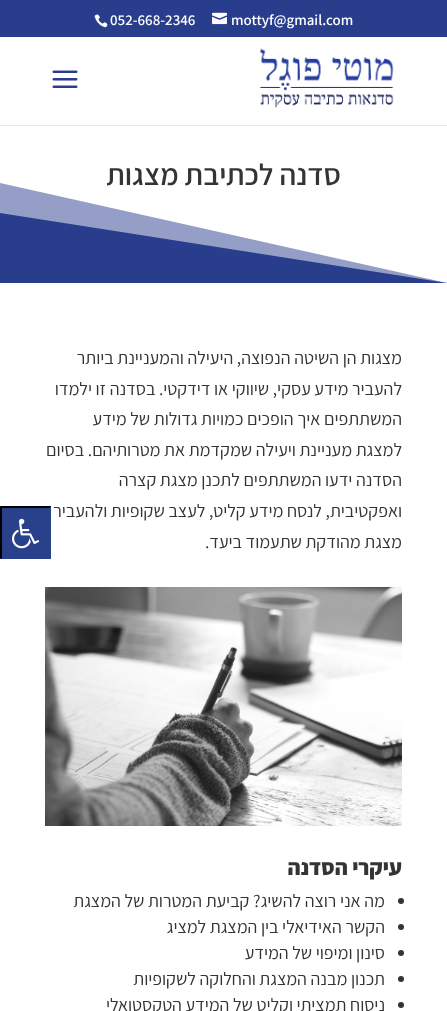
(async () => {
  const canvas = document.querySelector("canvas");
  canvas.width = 447;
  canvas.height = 1011;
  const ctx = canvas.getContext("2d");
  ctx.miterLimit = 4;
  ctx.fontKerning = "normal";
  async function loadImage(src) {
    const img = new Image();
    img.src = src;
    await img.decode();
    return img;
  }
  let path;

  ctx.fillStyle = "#ffffff";
  ctx.fillRect(0, 0, 447, 1011);
  ctx.fillStyle = "#293d8d";
  ctx.fillRect(0, 0, 447, 37);
  ctx.drawImage(await loadImage("img/1.png"), 212, 12, 15, 13);
  ctx.drawImage(await loadImage("img/2.png"), 94, 14, 14, 14);
  ctx.fillStyle = "#e6e6e6";
  ctx.fillRect(0, 125, 447, 1);
  ctx.drawImage(await loadImage("img/3.png"), 259, 48, 135, 60);
  ctx.drawImage(await loadImage("img/4.png"), 52, 70, 26, 18);
  ctx.fillStyle = "#949ec6";
  path = new Path2D("M0 183V283H447Z");
  ctx.fill(path);
  ctx.fillStyle = "#293d8d";
  path = new Path2D("M0 213V283H447Z");
  ctx.fill(path);
  ctx.drawImage(await loadImage("img/5.png"), 45, 587, 357, 239);
  ctx.fillStyle = "#343434";
  ctx.beginPath();
  ctx.arc(401, 901, 3, 0, Math.PI * 2);
  ctx.fill();
  ctx.beginPath();
  ctx.arc(401, 927, 3, 0, Math.PI * 2);
  ctx.fill();
  ctx.beginPath();
  ctx.arc(401, 953, 3, 0, Math.PI * 2);
  ctx.fill();
  ctx.beginPath();
  ctx.arc(401, 979, 3, 0, Math.PI * 2);
  ctx.fill();
  ctx.beginPath();
  ctx.arc(401, 1005, 3, 0, Math.PI * 2);
  ctx.fill();
  ctx.fillStyle = "#29408b";
  ctx.fillRect(0, 506, 51, 53);
  ctx.fillStyle = "#000000";
  path = new Path2D("M0 506H51L50 508H2Z");
  ctx.fill(path);
  ctx.fillStyle = "#29408b";
  path = new Path2D("M51 506V559L50 558V508Z");
  ctx.fill(path);
  ctx.fillStyle = "#000000";
  path = new Path2D("M0 559V506L2 508V558Z");
  ctx.fill(path);
  ctx.drawImage(await loadImage("img/6.png"), 12, 518, 28, 31);
  ctx.font = "600 15px Assistant";
  ctx.fillStyle = "#ffffff";
  ctx.fillText("mottyf@gmail.com", 231, 25);
  ctx.fillText("052-668-2346", 110, 25);
  ctx.direction = "rtl";
  ctx.font = "600 30px Assistant";
  ctx.fillStyle = "#343434";
  ctx.fillText("סדנה לכתיבת מצגות", 341, 185);
  ctx.font = "18px Assistant";
  for (const [text, x, y] of [
    ["מצגות הן השיטה הנפוצה, היעילה והמעניינת ביותר", 402, 364],
    ["להעביר מידע עסקי, שיווקי או דידקטי. בסדנה זו ילמדו", 402, 395],
    ["המשתתפים איך הופכים כמויות גדולות של מידע", 402, 425],
    ["למצגת מעניינת ויעילה שמקדמת את מטרותיהם. בסיום", 402, 456],
    ["הסדנה ידעו המשתתפים לתכנן מצגת קצרה", 402, 486],
    ["ואפקטיבית, לנסח מידע קליט, לעצב שקופיות ולהעביר", 402, 517],
    ["מצגת מהודקת שתעמוד ביעד.", 402, 548],
  ]) {
    ctx.fillText(text, x, y);
  }
  ctx.font = "800 22px Assistant";
  ctx.fillText("עיקרי הסדנה", 402, 875);
  ctx.font = "18px Assistant";
  for (const [text, x, y] of [
    ["מה אני רוצה להשיג? קביעת המטרות של המצגת", 385, 907],
    ["הקשר האידיאלי בין המצגת למציג", 385, 933],
    ["סינון ומיפוי של המידע", 385, 959],
    ["תכנון מבנה המצגת והחלוקה לשקופיות", 385, 985],
    ["ניסוח תמציתי וקליט של המידע הטקסטואלי", 385, 1011],
  ]) {
    ctx.fillText(text, x, y);
  }
})();
